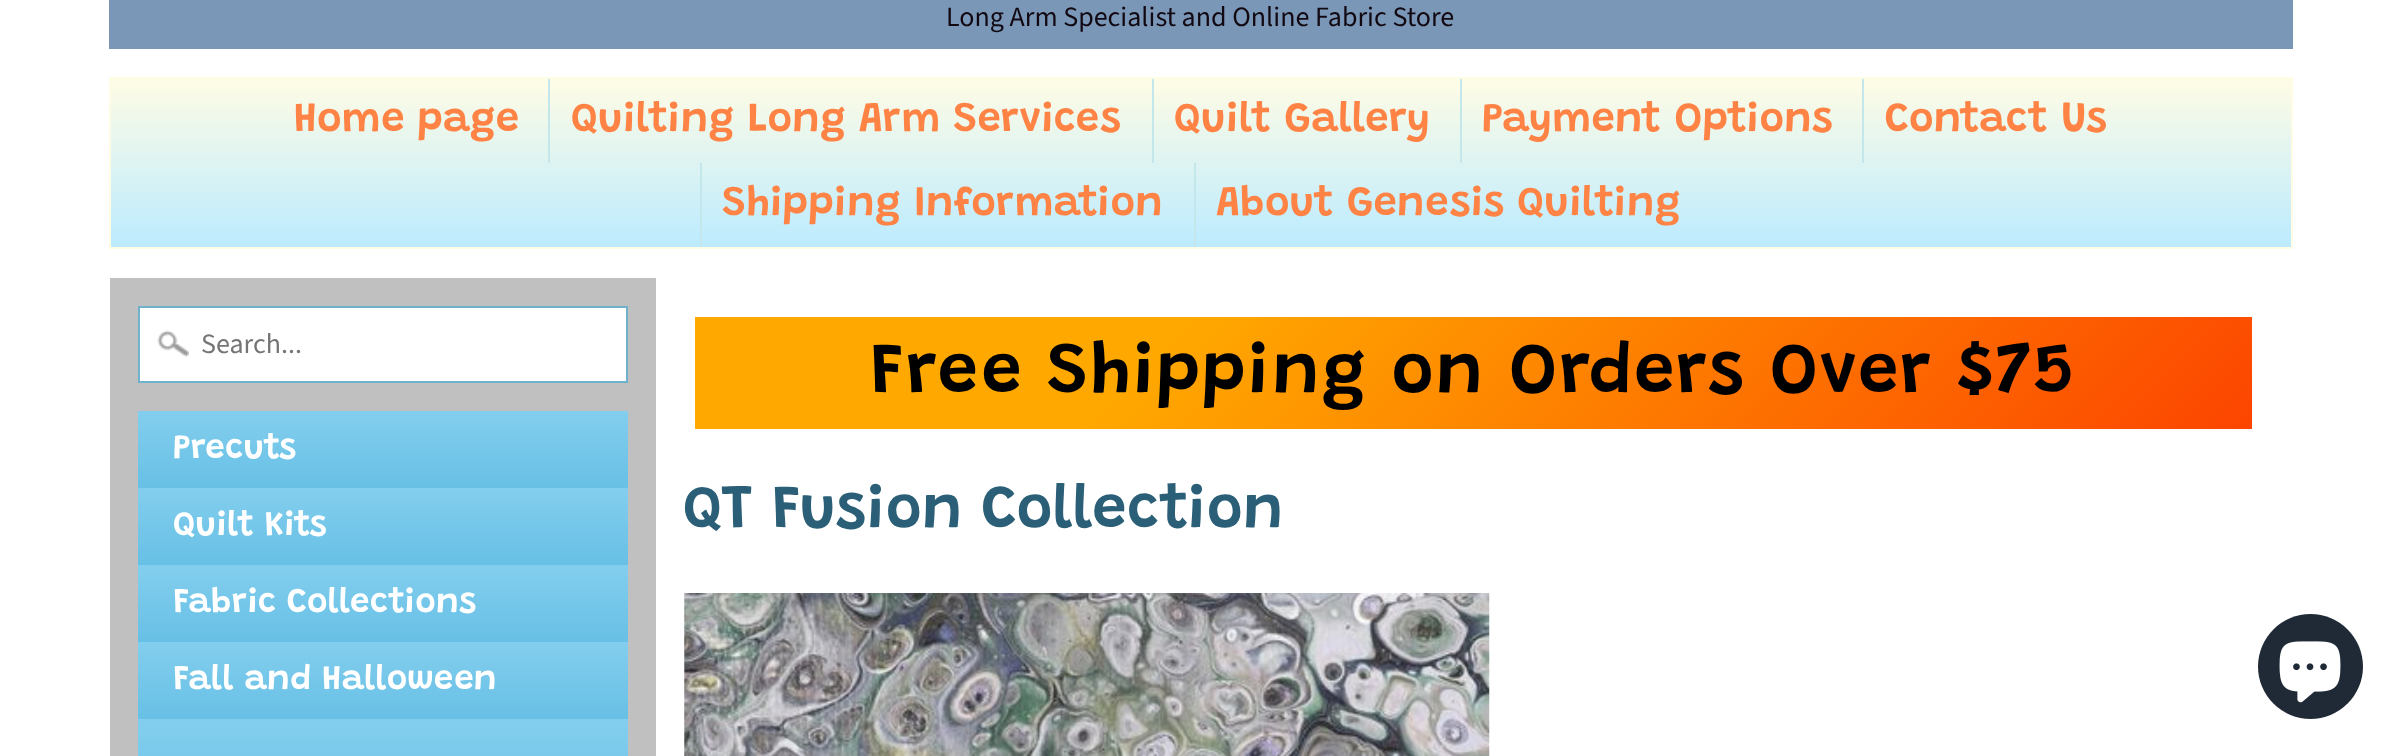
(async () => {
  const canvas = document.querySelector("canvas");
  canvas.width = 2401;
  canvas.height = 756;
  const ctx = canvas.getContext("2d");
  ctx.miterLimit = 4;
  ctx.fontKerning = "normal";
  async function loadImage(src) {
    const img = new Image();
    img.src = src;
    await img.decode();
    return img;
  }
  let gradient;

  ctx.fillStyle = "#ffffff";
  ctx.fillRect(0, 0, 2401, 756);
  ctx.fillStyle = "#7a97b8";
  ctx.fillRect(109, 0, 2184, 49);
  gradient = ctx.createLinearGradient(1201, 79, 1201, 247);
  gradient.addColorStop(0, "#fffce5");
  gradient.addColorStop(1, "#bcebff");
  ctx.fillStyle = gradient;
  ctx.fillRect(111, 79, 2180, 168);
  ctx.strokeStyle = "#fffce5";
  ctx.lineWidth = 2;
  ctx.strokeRect(110, 78, 2182, 170);
  for (const [x, y, w, h, color] of [
    [548, 79, 2, 84, "#c3e7ea"],
    [1152, 79, 2, 84, "#c3e7ea"],
    [1460, 79, 2, 84, "#c3e7ea"],
    [1862, 79, 2, 84, "#c3e7ea"],
    [700, 163, 2, 84, "#c3e7ea"],
    [1194, 163, 2, 84, "#c3e7ea"],
    [110, 278, 546, 478, "#c0c0c0"],
    [140, 308, 486, 73, "#ffffff"],
  ]) {
    ctx.fillStyle = color;
    ctx.fillRect(x, y, w, h);
  }
  ctx.drawImage(await loadImage("img/1.png"), 157, 330, 32, 27);
  ctx.strokeStyle = "#70b1cc";
  ctx.strokeRect(139, 307, 488, 75);
  gradient = ctx.createLinearGradient(383, 411, 383, 488);
  gradient.addColorStop(0, "#83ceee");
  gradient.addColorStop(1, "#67c0e5");
  ctx.fillStyle = gradient;
  ctx.fillRect(138, 411, 490, 77);
  gradient = ctx.createLinearGradient(383, 488, 383, 565);
  gradient.addColorStop(0, "#83ceee");
  gradient.addColorStop(1, "#67c0e5");
  ctx.fillStyle = gradient;
  ctx.fillRect(138, 488, 490, 77);
  gradient = ctx.createLinearGradient(383, 565, 383, 642);
  gradient.addColorStop(0, "#83ceee");
  gradient.addColorStop(1, "#67c0e5");
  ctx.fillStyle = gradient;
  ctx.fillRect(138, 565, 490, 77);
  gradient = ctx.createLinearGradient(383, 642, 383, 719);
  gradient.addColorStop(0, "#83ceee");
  gradient.addColorStop(1, "#67c0e5");
  ctx.fillStyle = gradient;
  ctx.fillRect(138, 642, 490, 77);
  gradient = ctx.createLinearGradient(383, 719, 383, 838);
  gradient.addColorStop(0, "#83ceee");
  gradient.addColorStop(1, "#67c0e5");
  ctx.fillStyle = gradient;
  ctx.fillRect(138, 719, 490, 37);
  gradient = ctx.createLinearGradient(1056, -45, 1891, 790);
  gradient.addColorStop(0.3, "#ffa800");
  gradient.addColorStop(1, "#fc4500");
  ctx.fillStyle = gradient;
  ctx.fillRect(695, 317, 1557, 112);
  ctx.drawImage(await loadImage("img/2.png"), 684, 593, 806, 163);
  ctx.fillStyle = "#202a36";
  ctx.beginPath();
  ctx.arc(2310.5, 666.5, 52.5, 0, Math.PI * 2);
  ctx.fill();
  ctx.drawImage(await loadImage("img/3.png"), 2279, 641, 62, 62);
  ctx.font = "28px Source Sans Pro";
  ctx.fillStyle = "#110811";
  ctx.fillText("Long Arm Specialist and Online Fabric Store", 946, 26);
  ctx.font = "600 42px Grandstander";
  ctx.fillStyle = "#fe8345";
  for (const [text, x, y] of [
    ["Home page", 294, 131],
    ["Quilting Long Arm Services", 571, 131],
    ["Quilt Gallery", 1174, 131],
    ["Payment Options", 1482, 131],
    ["Contact Us", 1885, 131],
    ["Shipping Information", 722, 215],
    ["About Genesis Quilting", 1216, 215],
  ]) {
    ctx.fillText(text, x, y);
  }
  ctx.font = "28px Source Sans Pro";
  ctx.fillStyle = "#757575";
  ctx.fillText("Search...", 201, 353);
  ctx.font = "600 35px Grandstander";
  ctx.fillStyle = "#ffffff";
  for (const [text, x, y] of [
    ["Precuts", 173, 458],
    ["Quilt Kits", 173, 535],
    ["Fabric Collections", 173, 612],
    ["Fall and Halloween", 173, 689],
  ]) {
    ctx.fillText(text, x, y);
  }
  ctx.letterSpacing = "1.75px";
  ctx.font = "600 72px Grandstander";
  ctx.fillStyle = "#000000";
  ctx.fillText("Free Shipping on Orders Over $75", 870, 392);
  ctx.letterSpacing = "0px";
  ctx.font = "600 61.5px Grandstander";
  ctx.fillStyle = "#2b5f77";
  ctx.fillText("QT Fusion Collection", 683, 527);
})();
